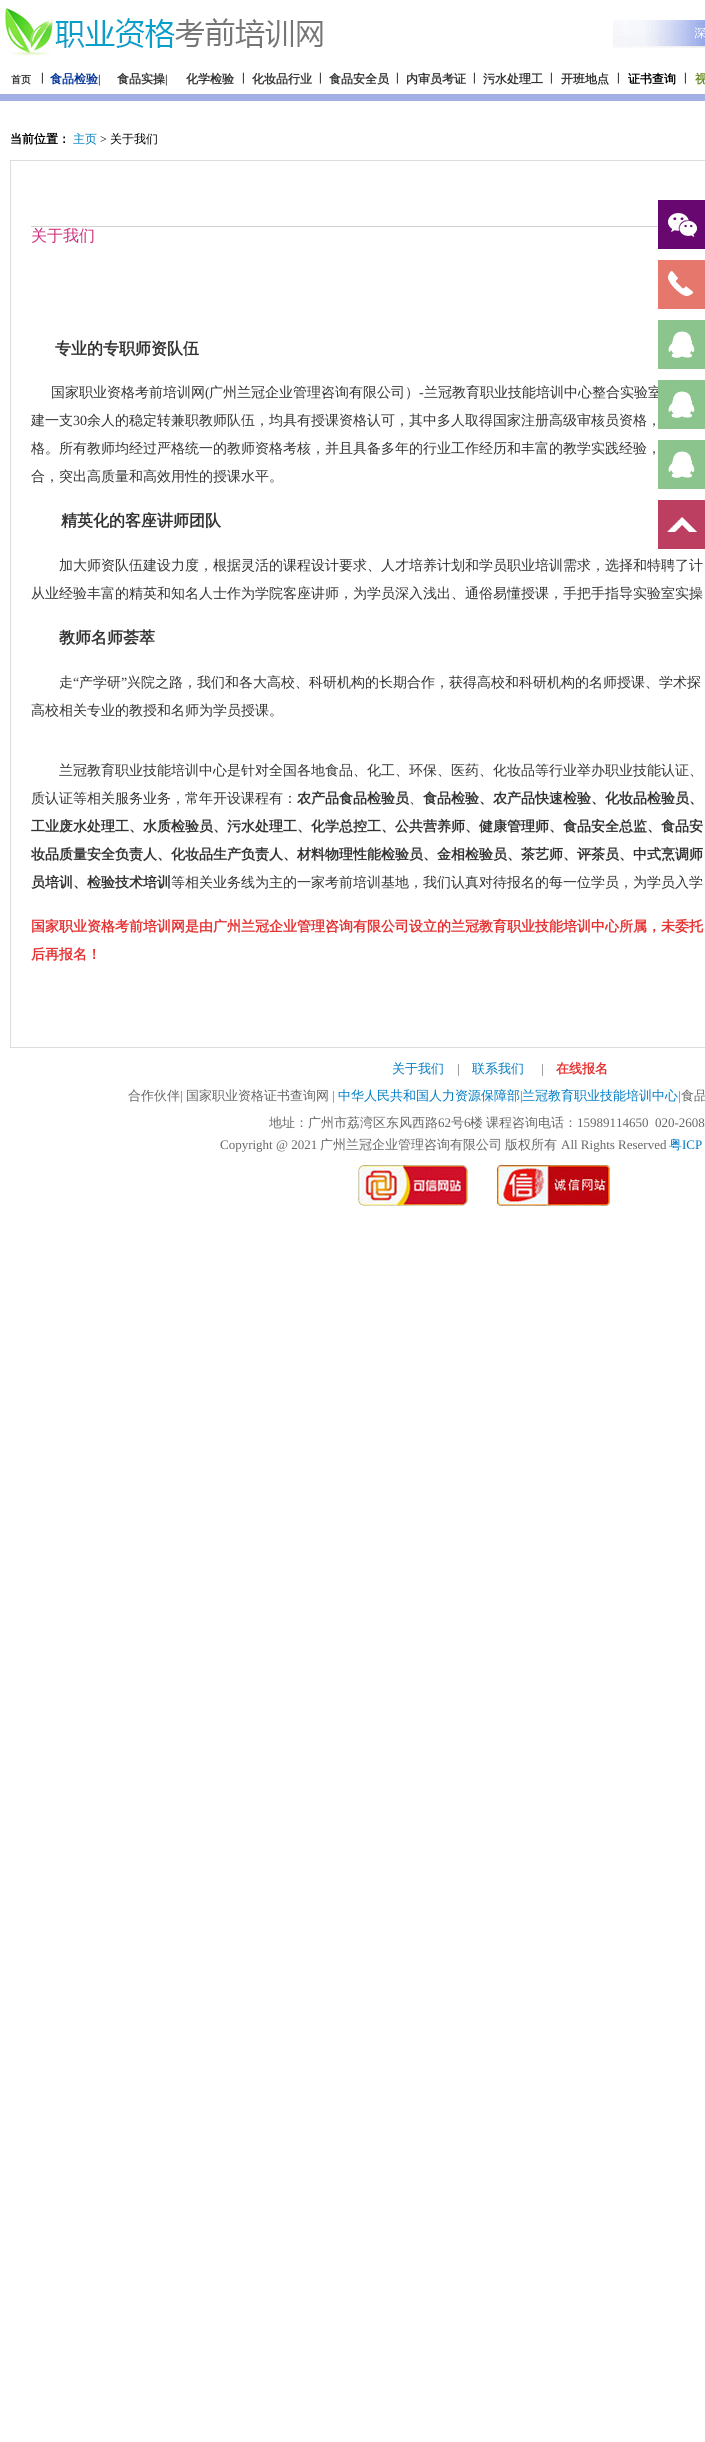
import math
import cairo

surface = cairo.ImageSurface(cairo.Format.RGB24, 705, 2442)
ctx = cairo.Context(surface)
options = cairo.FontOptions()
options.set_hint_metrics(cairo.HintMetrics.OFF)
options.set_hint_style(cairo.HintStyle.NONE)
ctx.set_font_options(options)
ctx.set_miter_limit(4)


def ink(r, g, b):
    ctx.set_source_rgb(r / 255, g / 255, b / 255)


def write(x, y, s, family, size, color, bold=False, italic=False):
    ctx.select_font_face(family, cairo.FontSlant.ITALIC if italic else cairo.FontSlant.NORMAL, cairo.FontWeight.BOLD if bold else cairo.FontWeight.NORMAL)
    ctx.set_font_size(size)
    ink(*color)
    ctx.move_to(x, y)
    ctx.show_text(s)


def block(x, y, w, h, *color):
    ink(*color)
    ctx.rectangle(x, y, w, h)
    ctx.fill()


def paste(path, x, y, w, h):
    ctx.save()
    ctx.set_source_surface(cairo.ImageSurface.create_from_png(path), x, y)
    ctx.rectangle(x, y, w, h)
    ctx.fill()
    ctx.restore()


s1 = dict(family="WenQuanYi Zen Hei Medium", size=12, color=(255, 255, 255))
s2 = dict(family="WenQuanYi Zen Hei", size=10, color=(51, 51, 51), bold=True)
s3 = dict(family="Liberation Serif", size=12, color=(0, 0, 0), bold=True)
s4 = dict(family="WenQuanYi Zen Hei", size=12, color=(0, 51, 153), bold=True)
s5 = dict(family="Liberation Serif", size=12, color=(51, 51, 51), bold=True)
s6 = dict(family="WenQuanYi Zen Hei", size=12, color=(51, 51, 51), bold=True)
s7 = dict(family="WenQuanYi Zen Hei", size=12, color=(0, 0, 0), bold=True)
s8 = dict(family="WenQuanYi Zen Hei", size=12, color=(105, 139, 34), bold=True)
s9 = dict(family="WenQuanYi Zen Hei Medium", size=12, color=(0, 123, 196))
s10 = dict(family="Liberation Serif", size=12, color=(0, 0, 0))
s11 = dict(family="WenQuanYi Zen Hei Medium", size=12, color=(0, 0, 0))
s12 = dict(family="WenQuanYi Zen Hei Medium", size=16, color=(207, 47, 124))
s13 = dict(family="WenQuanYi Zen Hei", size=16, color=(51, 51, 51), bold=True)
s14 = dict(family="WenQuanYi Zen Hei Medium", size=14, color=(51, 51, 51))
s15 = dict(family="Liberation Serif", size=14, color=(51, 51, 51))
s16 = dict(family="WenQuanYi Zen Hei", size=14, color=(51, 51, 51), bold=True)
s17 = dict(family="WenQuanYi Zen Hei", size=14, color=(229, 51, 51), bold=True)
s18 = dict(family="WenQuanYi Zen Hei Medium", size=13, color=(0, 123, 196))
s19 = dict(family="Liberation Serif", size=13, color=(102, 102, 102))
s20 = dict(family="WenQuanYi Zen Hei", size=13, color=(229, 51, 51), bold=True)
s21 = dict(family="WenQuanYi Zen Hei Medium", size=13, color=(102, 102, 102))
s22 = dict(family="Liberation Serif", size=13, color=(0, 123, 196))

ink(255, 255, 255)
ctx.paint()
paste("pic1.png", 0, 94, 705, 7)
paste("pic2.png", 5, 8, 318, 48)
paste("pic3.png", 613, 20, 92, 28)
ctx.save()
ctx.rectangle(695, 22, 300, 28)
ctx.clip()
write(694, 37, "深", **s1)
ctx.restore()
write(11, 83, "首页", **s2)
write(41, 81, "|", **s3)
write(50, 83, "食品检验", **s4)
write(98, 83, "|", **s5)
write(117, 83, "食品实操", **s6)
write(165, 83, "|", **s5)
write(186, 83, "化学检验", **s6)
write(242, 81, "|", **s3)
write(252, 83, "化妆品行业", **s6)
write(319, 81, "|", **s3)
write(329, 83, "食品安全员", **s6)
write(396, 81, "|", **s3)
write(406, 83, "内审员考证", **s6)
write(473, 81, "|", **s3)
write(483, 83, "污水处理工", **s6)
write(550, 81, "|", **s3)
write(561, 83, "开班地点", **s6)
write(617, 81, "|", **s3)
write(628, 83, "证书查询", **s7)
write(684, 81, "|", **s3)
write(695, 83, "视", **s8)
write(10, 143, "当前位置：", **s7)
write(73, 143, "主页", **s9)
write(100, 143, ">", **s10)
write(110, 143, "关于我们", **s11)
ctx.rectangle(10.5, 160.5, 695, 887)
ink(221, 221, 221)
ctx.set_line_width(1)
ctx.stroke()
block(31, 226, 627, 1, 211, 211, 211)
write(31, 241, "关于我们", **s12)
write(55, 354, "专业的专职师资队伍", **s13)
write(51, 397, "国家职业资格考前培训网", **s14)
write(205, 397, "(", **s15)
write(209, 397, "广州兰冠企业管理咨询有限公司）", **s14)
write(419, 397, "-", **s15)
write(424, 397, "兰冠教育职业技能培训中心整合实验室", **s14)
write(31, 425, "建一支", **s14)
write(73, 425, "30", **s15)
write(87, 425, "余人的稳定转兼职教师队伍，均具有授课资格认可，其中多人取得国家注册高级审核员资格，", **s14)
write(31, 453, "格。所有教师均经过严格统一的教师资格考核，并且具备多年的行业工作经历和丰富的教学实践经验，", **s14)
write(31, 481, "合，突出高质量和高效用性的授课水平。", **s14)
write(61, 526, "精英化的客座讲师团队", **s13)
write(59, 570, "加大师资队伍建设力度，根据灵活的课程设计要求、人才培养计划和学员职业培训需求，选择和特聘了计", **s14)
write(31, 598, "从业经验丰富的精英和知名人士作为学院客座讲师，为学员深入浅出、通俗易懂授课，手把手指导实验室实操", **s14)
write(59, 643, "教师名师荟萃", **s13)
write(59, 687, "走", **s14)
write(73, 687, "“", **s15)
write(79, 687, "产学研", **s14)
write(121, 687, "”", **s15)
write(127, 687, "兴院之路，我们和各大高校、科研机构的长期合作，获得高校和科研机构的名师授课、学术探", **s14)
write(31, 715, "高校相关专业的教授和名师为学员授课。", **s14)
write(59, 775, "兰冠教育职业技能培训中心是针对全国各地食品、化工、环保、医药、化妆品等行业举办职业技能认证、", **s14)
write(31, 803, "质认证等相关服务业务，常年开设课程有：", **s14)
write(297, 803, "农产品食品检验员", **s16)
write(409, 803, "、", **s14)
write(423, 803, "食品检验、农产品快速检验、化妆品检验员、", **s16)
write(31, 831, "工业废水处理工、水质检验员、污水处理工、化学总控工、公共营养师、健康管理师、食品安全总监、食品安", **s16)
write(31, 859, "妆品质量安全负责人、化妆品生产负责人、材料物理性能检验员、金相检验员、茶艺师、评茶员、中式烹调师", **s16)
write(31, 887, "员培训、检验技术培训", **s16)
write(171, 887, "等相关业务线为主的一家考前培训基地，我们认真对待报名的每一位学员，为学员入学", **s14)
write(31, 931, "国家职业资格考前培训网是由广州兰冠企业管理咨询有限公司设立的兰冠教育职业技能培训中心所属，未委托", **s17)
write(31, 959, "后再报名！", **s17)
write(392, 1073, "关于我们", **s18)
write(457, 1073, "|", **s19)
write(472, 1073, "联系我们", **s18)
write(541, 1073, "|", **s19)
write(556, 1073, "在线报名", **s20)
write(128, 1100, "合作伙伴", **s21)
write(180, 1100, "|", **s19)
write(186, 1100, "国家职业资格证书查询网", **s21)
write(332, 1100, "|", **s19)
write(338, 1100, "中华人民共和国人力资源保障部", **s18)
write(520, 1100, "|", **s19)
write(522, 1100, "兰冠教育职业技能培训中心", **s18)
write(678, 1100, "|", **s19)
write(681, 1100, "食品", **s21)
write(269, 1127, "地址：广州市荔湾区东风西路", **s21)
write(438, 1127, "62", **s19)
write(451, 1127, "号", **s21)
write(464, 1127, "6", **s19)
write(470, 1127, "楼", **s21)
write(486, 1127, "课程咨询电话：", **s21)
write(577, 1127, "15989114650  020-2608", **s19)
write(220, 1149, "Copyright @ 2021", **s19)
write(320, 1149, "广州兰冠企业管理咨询有限公司", **s21)
write(505, 1149, "版权所有", **s21)
write(561, 1149, "All Rights Reserved", **s19)
write(669, 1149, "粤", **s18)
write(682, 1149, "ICP", **s22)
paste("pic4.png", 358, 1164, 252, 45)
paste("pic5.png", 658, 200, 47, 49)
paste("pic6.png", 658, 260, 47, 49)
paste("pic7.png", 658, 320, 47, 49)
paste("pic7.png", 658, 380, 47, 49)
paste("pic7.png", 658, 440, 47, 49)
paste("pic8.png", 658, 500, 47, 49)
surface.write_to_png("screenshot.png")
